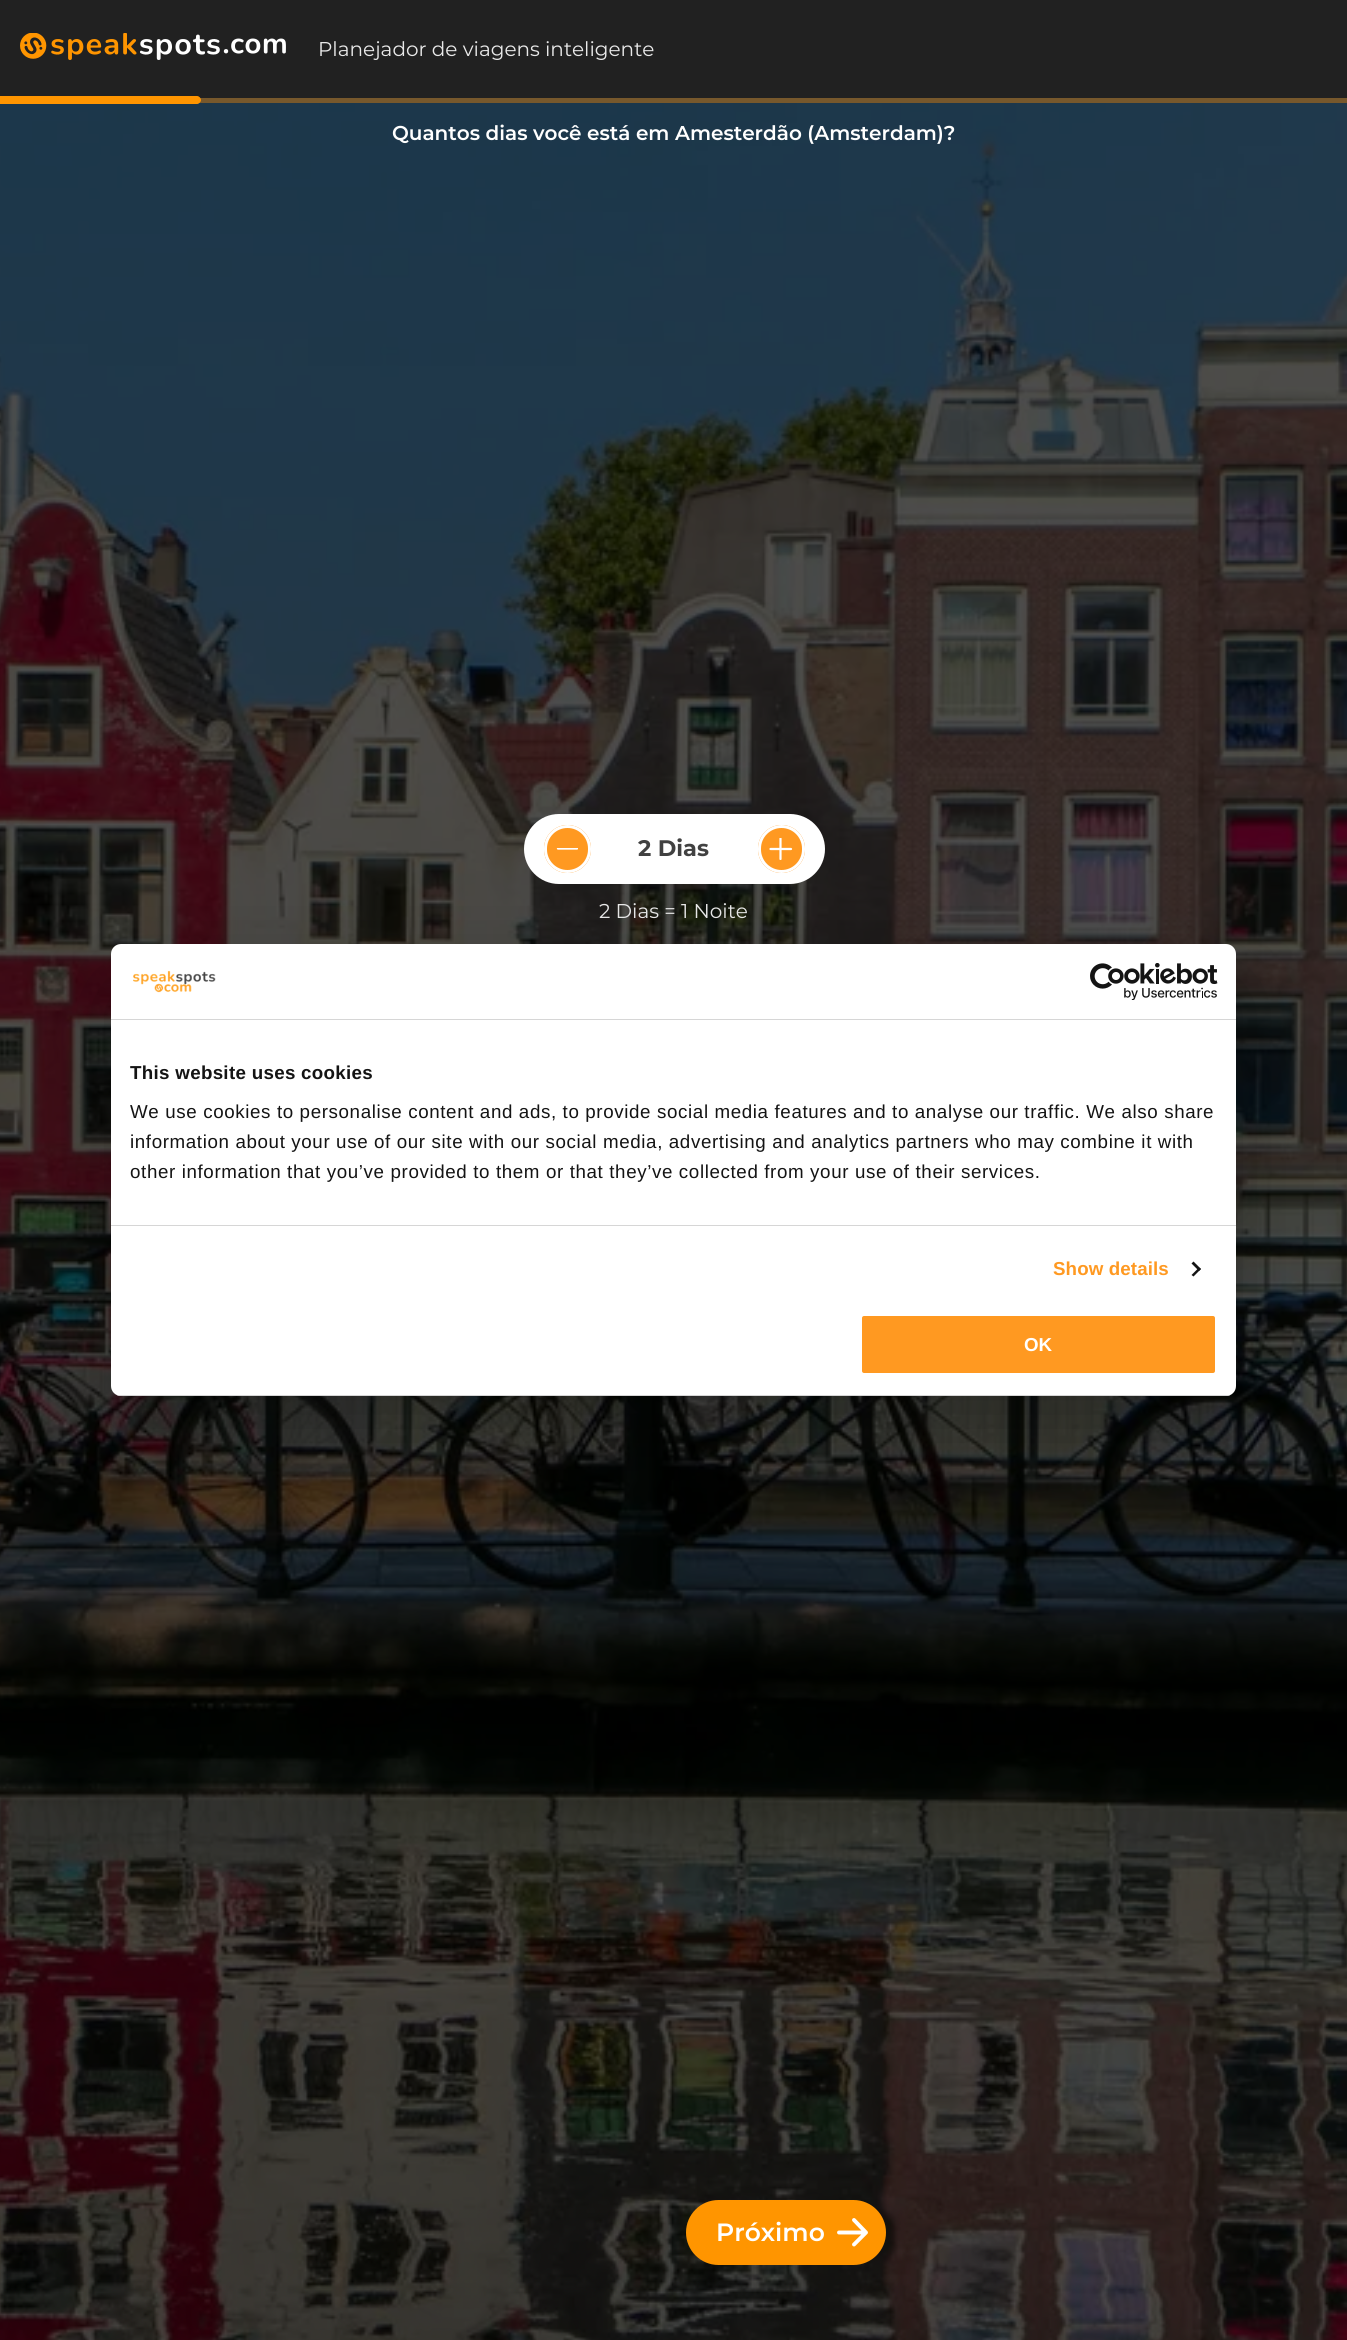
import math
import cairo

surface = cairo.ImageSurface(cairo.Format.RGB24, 1347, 2340)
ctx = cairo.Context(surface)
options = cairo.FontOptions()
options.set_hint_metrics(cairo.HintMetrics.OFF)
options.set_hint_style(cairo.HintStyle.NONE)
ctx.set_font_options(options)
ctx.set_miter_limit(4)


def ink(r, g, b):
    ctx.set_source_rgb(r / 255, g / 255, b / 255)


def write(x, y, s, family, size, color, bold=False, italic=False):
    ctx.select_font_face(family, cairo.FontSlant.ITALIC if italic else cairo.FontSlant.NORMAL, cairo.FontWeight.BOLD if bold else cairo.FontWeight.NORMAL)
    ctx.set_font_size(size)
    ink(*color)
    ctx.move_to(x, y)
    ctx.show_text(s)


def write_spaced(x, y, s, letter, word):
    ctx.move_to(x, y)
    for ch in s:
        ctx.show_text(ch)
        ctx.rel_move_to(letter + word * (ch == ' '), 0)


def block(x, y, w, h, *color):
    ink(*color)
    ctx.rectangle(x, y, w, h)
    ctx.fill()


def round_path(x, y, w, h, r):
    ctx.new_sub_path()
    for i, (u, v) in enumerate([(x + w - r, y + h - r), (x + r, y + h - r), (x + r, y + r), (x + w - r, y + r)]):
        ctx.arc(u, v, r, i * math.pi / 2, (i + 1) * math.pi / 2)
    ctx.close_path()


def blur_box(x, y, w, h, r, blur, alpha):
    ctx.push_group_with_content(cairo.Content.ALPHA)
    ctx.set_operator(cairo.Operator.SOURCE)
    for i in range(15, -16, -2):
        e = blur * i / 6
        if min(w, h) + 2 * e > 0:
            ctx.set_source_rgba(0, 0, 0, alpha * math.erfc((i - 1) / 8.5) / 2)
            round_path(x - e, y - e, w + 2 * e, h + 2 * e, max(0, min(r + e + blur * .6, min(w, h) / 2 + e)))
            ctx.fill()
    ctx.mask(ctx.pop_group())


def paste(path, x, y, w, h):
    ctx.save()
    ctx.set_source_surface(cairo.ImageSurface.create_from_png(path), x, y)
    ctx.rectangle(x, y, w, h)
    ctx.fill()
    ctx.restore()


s1 = dict(family="Montserrat", size=20, color=(233, 233, 233))
s2 = dict(family="Montserrat SemiBold", size=20, color=(255, 255, 255))
s3 = dict(family="Montserrat", size=22.5, color=(65, 65, 65), bold=True)
s4 = dict(family="Montserrat SemiBold", size=25, color=(255, 255, 255))
s5 = dict(family="Liberation Sans", size=18.75, color=(255, 255, 255), bold=True)

ink(33, 33, 33)
ctx.paint()
paste("pic1.png", 20, 33, 266, 27)
write(318, 56, "Planejador de viagens inteligente", **s1)
block(199, 98, 1148, 5, 119, 88, 44)
paste("pic2.png", 0, 103, 1347, 2237)
ink(255, 149, 0)
ctx.new_path()
ctx.move_to(0, 96)
ctx.line_to(197, 96)
ctx.curve_to(199, 96, 201, 98, 201, 100)
ctx.curve_to(201, 102, 199, 104, 197, 104)
ctx.line_to(0, 104)
ctx.close_path()
ctx.fill()
write(392, 140, "Quantos dias você está em Amesterdão (Amsterdam)?", **s2)
round_path(524, 814, 301, 70, 35)
ctx.fill()
ink(255, 153, 33)
round_path(544, 825, 47, 48, 23.5)
ctx.fill()
ctx.save()
ctx.rectangle(556, 848, 22, 3)
ctx.clip()
ctx.new_path()
ctx.move_to(577, 848.5)
ctx.line_to(558, 848.5)
ink(255, 255, 255)
ctx.set_line_width(2.3)
ctx.set_line_cap(cairo.LineCap.ROUND)
ctx.set_line_join(cairo.LineJoin.ROUND)
ctx.stroke()
ctx.restore()
round_path(545.5, 826.5, 44, 45, 22)
ink(255, 255, 255)
ctx.set_line_width(3)
ctx.stroke()
write(638, 856, "2 Dias", **s3)
ink(255, 153, 33)
round_path(758, 825, 47, 48, 23.5)
ctx.fill()
ctx.save()
ctx.rectangle(769, 838, 22, 22)
ctx.clip()
ctx.new_path()
ctx.move_to(780.5, 838.5)
ctx.line_to(780.5, 859)
ink(255, 255, 255)
ctx.set_line_width(2.2)
ctx.set_line_cap(cairo.LineCap.ROUND)
ctx.set_line_join(cairo.LineJoin.ROUND)
ctx.stroke()
ctx.restore()
ctx.new_path()
ctx.move_to(791, 849)
ctx.line_to(770.5, 849)
ink(255, 255, 255)
ctx.set_line_width(2.2)
ctx.set_line_cap(cairo.LineCap.ROUND)
ctx.set_line_join(cairo.LineJoin.ROUND)
ctx.stroke()
round_path(759.5, 826.5, 44, 45, 22)
ctx.set_line_width(3)
ctx.set_line_cap(cairo.LineCap.BUTT)
ctx.set_line_join(cairo.LineJoin.MITER)
ctx.stroke()
write(599, 918, "2 Dias = 1 Noite", **s1)
ink(255, 149, 0)
round_path(686, 2200, 200, 65, 32.5)
ctx.fill()
write(716, 2241, "Próximo", **s4)
ctx.new_path()
ctx.move_to(864.5, 2232.5)
ctx.line_to(839, 2232.5)
ctx.move_to(854, 2220)
ctx.line_to(866, 2232.5)
ctx.line_to(854, 2244.5)
ctx.set_line_width(3.9)
ctx.set_line_cap(cairo.LineCap.ROUND)
ctx.set_line_join(cairo.LineJoin.ROUND)
ctx.stroke()
ink(0, 0, 0)
blur_box(111, 984, 1125, 452, 10, 42.5, 0.3)
ink(255, 255, 255)
round_path(111, 944, 1125, 452, 10)
ctx.fill()
block(111, 1019, 1125, 1, 214, 214, 214)
paste("pic3.png", 133, 970, 83, 23)
paste("pic4.png", 1090, 963, 128, 37)
block(111, 1225, 1125, 1, 214, 214, 214)
ctx.select_font_face("Liberation Sans", cairo.FontSlant.NORMAL, cairo.FontWeight.BOLD)
ctx.set_font_size(18.75)
ink(20, 20, 20)
write_spaced(130, 1079, "This website uses cookies", 0.3, 0)
ctx.select_font_face("Liberation Sans")
write_spaced(130, 1118, "We use cookies to personalise content and ads, to provide social media features and to analyse our traffic. We also share", 0.62, 0)
write_spaced(130, 1148, "information about your use of our site with our social media, advertising and analytics partners who may combine it with", 0.62, 0)
write_spaced(130, 1178, "other information that you’ve provided to them or that they’ve collected from your use of their services.", 0.62, 0)
ctx.select_font_face("Liberation Sans", cairo.FontSlant.NORMAL, cairo.FontWeight.BOLD)
ink(255, 153, 33)
write_spaced(1053, 1275, "Show details", 0.1, 0)
ink(20, 20, 20)
ctx.new_path()
ctx.move_to(1193.5, 1261.5)
ctx.line_to(1201, 1269)
ctx.line_to(1199, 1271)
ctx.line_to(1191.5, 1263.5)
ctx.close_path()
ctx.fill()
ctx.new_path()
ctx.move_to(1199, 1267.5)
ctx.line_to(1201, 1269)
ctx.line_to(1193.5, 1276.5)
ctx.line_to(1191.5, 1275)
ctx.close_path()
ctx.fill()
ctx.save()
round_path(111, 944, 1125, 452, 10)
ctx.clip()
block(111, 1395, 1125, 1, 214, 214, 214)
ctx.restore()
ink(255, 153, 33)
round_path(860.5, 1314.5, 356, 60, 3.5)
ctx.fill_preserve()
ink(255, 255, 255)
ctx.set_line_width(3)
ctx.set_line_cap(cairo.LineCap.BUTT)
ctx.set_line_join(cairo.LineJoin.MITER)
ctx.stroke()
write(1024, 1351, "OK", **s5)
surface.write_to_png("screenshot.png")
